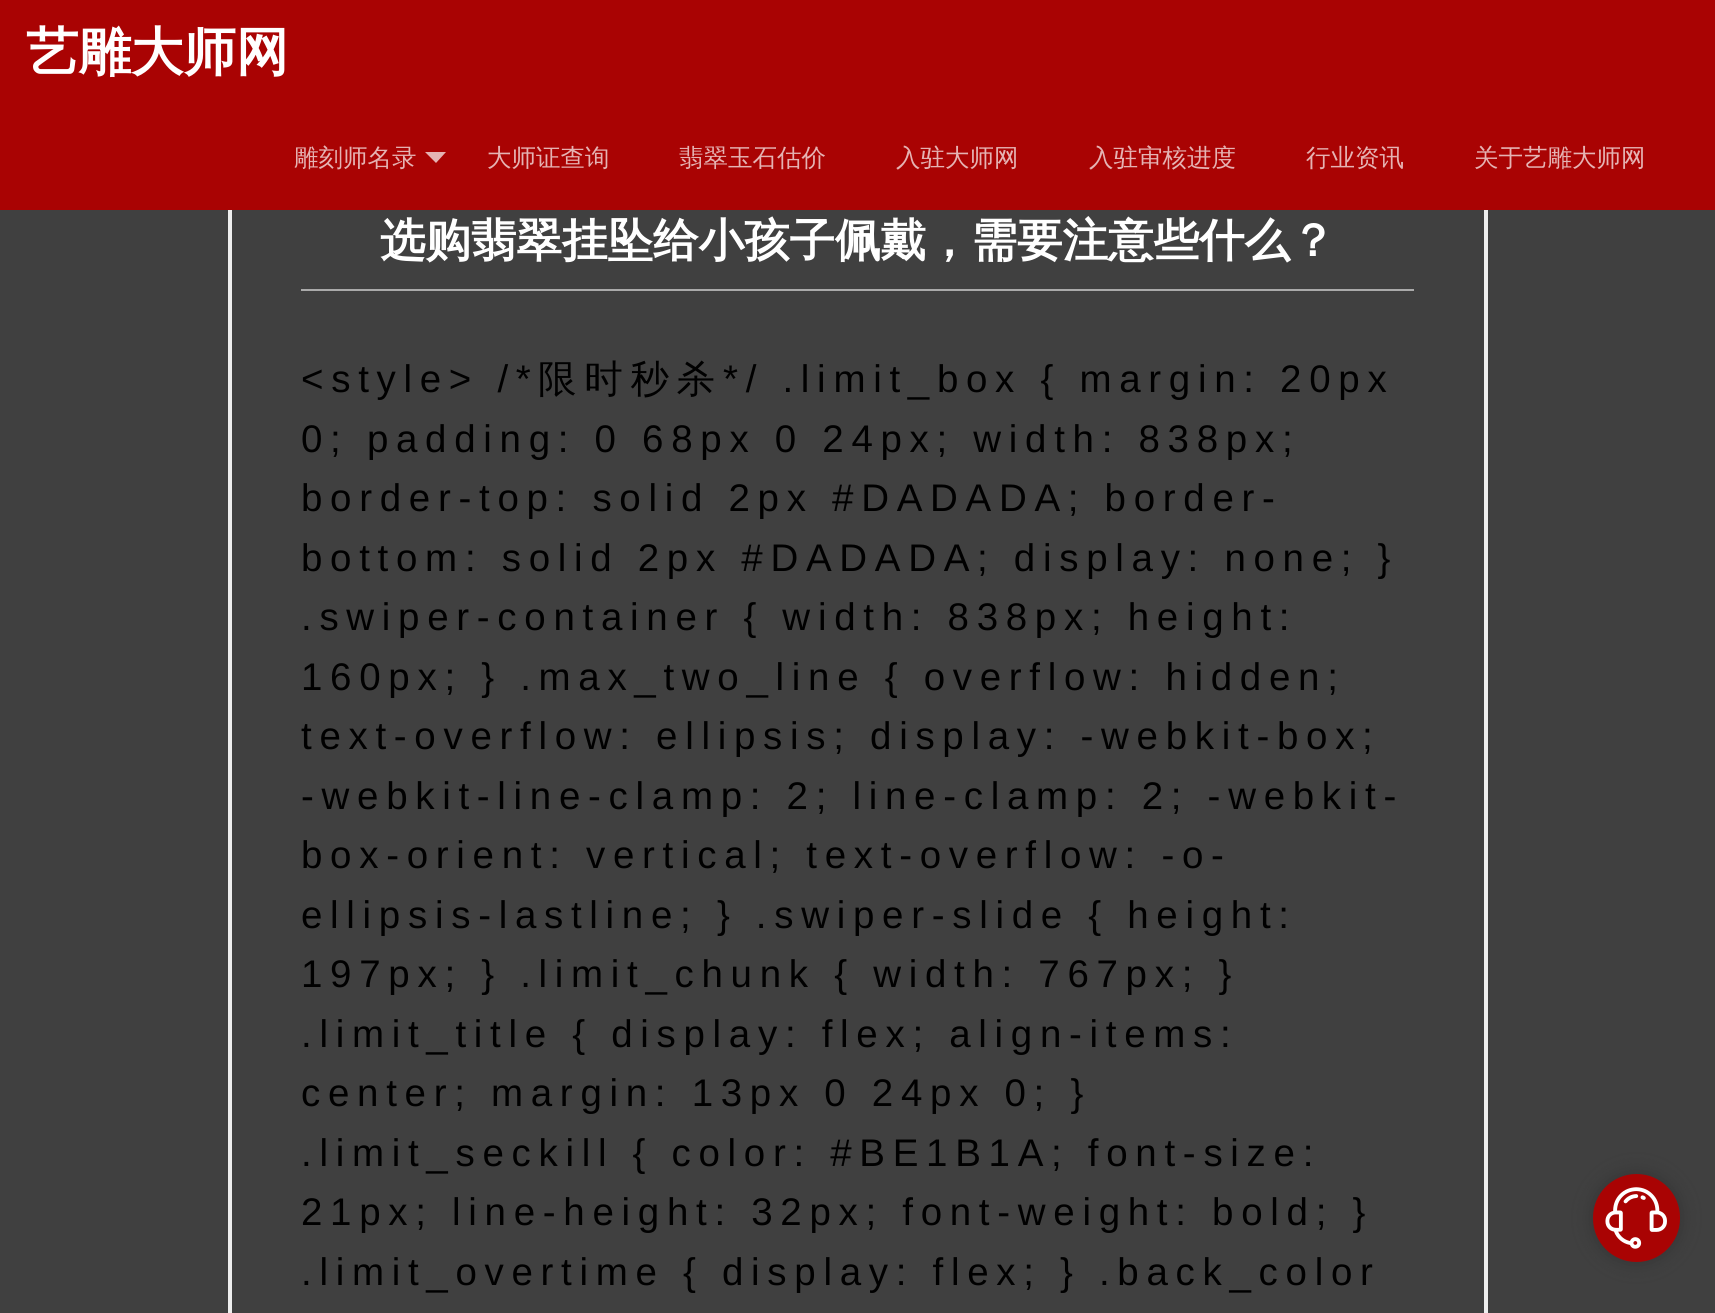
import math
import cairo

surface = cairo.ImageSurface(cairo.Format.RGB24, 1715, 1313)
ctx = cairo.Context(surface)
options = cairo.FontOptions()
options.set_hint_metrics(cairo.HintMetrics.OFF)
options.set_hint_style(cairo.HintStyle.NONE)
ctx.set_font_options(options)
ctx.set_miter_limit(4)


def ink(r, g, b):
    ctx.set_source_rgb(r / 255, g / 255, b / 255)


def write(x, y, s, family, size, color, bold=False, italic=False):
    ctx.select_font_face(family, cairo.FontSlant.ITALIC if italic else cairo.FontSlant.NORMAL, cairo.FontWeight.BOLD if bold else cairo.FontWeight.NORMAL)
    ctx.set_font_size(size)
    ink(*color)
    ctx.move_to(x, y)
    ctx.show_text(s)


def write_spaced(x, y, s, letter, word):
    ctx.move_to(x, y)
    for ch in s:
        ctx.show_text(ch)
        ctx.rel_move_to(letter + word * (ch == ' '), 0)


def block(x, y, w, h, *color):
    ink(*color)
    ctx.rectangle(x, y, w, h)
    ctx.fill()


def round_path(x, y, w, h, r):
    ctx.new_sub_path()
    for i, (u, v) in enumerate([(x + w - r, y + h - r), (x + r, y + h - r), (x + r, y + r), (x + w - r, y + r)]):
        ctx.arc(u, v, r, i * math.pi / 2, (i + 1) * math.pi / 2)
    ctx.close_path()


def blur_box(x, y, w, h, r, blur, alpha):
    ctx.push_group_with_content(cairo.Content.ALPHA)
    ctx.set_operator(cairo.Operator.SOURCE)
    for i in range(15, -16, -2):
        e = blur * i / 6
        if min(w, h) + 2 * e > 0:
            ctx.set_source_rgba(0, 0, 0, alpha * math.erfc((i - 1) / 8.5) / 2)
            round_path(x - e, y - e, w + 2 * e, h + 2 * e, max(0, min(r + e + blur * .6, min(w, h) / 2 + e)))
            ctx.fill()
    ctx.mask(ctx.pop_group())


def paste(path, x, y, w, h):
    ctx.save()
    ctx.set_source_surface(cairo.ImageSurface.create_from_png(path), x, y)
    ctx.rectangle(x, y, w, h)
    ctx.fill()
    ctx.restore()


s1 = dict(family="WenQuanYi Zen Hei", size=52.5, color=(255, 255, 255), bold=True)
s2 = dict(family="WenQuanYi Zen Hei Medium", size=24.5, color=(229, 179, 179))
s3 = dict(family="WenQuanYi Zen Hei", size=45.5, color=(255, 255, 255), bold=True)

ink(64, 64, 64)
ctx.paint()
block(0, 0, 1715, 210, 169, 3, 3)
write(26, 70, "艺雕大师网", **s1)
write(294, 166, "雕刻师名录", **s2)
ctx.new_path()
ctx.move_to(425, 152)
ctx.line_to(446, 152)
ctx.line_to(436, 163)
ctx.close_path()
ctx.fill()
write(487, 166, "大师证查询", **s2)
write(679, 166, "翡翠玉石估价", **s2)
write(896, 166, "入驻大师网", **s2)
write(1089, 166, "入驻审核进度", **s2)
write(1306, 166, "行业资讯", **s2)
write(1474, 166, "关于艺雕大师网", **s2)
block(1484, 210, 4, 1103, 238, 238, 238)
block(228, 210, 4, 1103, 238, 238, 238)
block(301, 289, 1113, 2, 170, 170, 170)
write(380, 256, "选购翡翠挂坠给小孩子佩戴，需要注意些什么？", **s3)
ctx.select_font_face("Liberation Sans")
ctx.set_font_size(38.5)
ink(0, 0, 0)
write_spaced(301, 392, "<style> /*", 7.7, 0)
ctx.select_font_face("WenQuanYi Zen Hei Medium")
write_spaced(538, 392, "限时秒杀", 7.7, 0)
ctx.select_font_face("Liberation Sans")
write_spaced(723, 392, "*/ .limit_box { margin: 20px", 7.7, 0)
write_spaced(301, 452, "0; padding: 0 68px 0 24px; width: 838px;", 7.7, 0)
write_spaced(301, 511, "border-top: solid 2px #DADADA; border-", 7.7, 0)
write_spaced(301, 571, "bottom: solid 2px #DADADA; display: none; }", 7.7, 0)
write_spaced(301, 630, ".swiper-container { width: 838px; height:", 7.7, 0)
write_spaced(301, 690, "160px; } .max_two_line { overflow: hidden;", 7.7, 0)
write_spaced(301, 749, "text-overflow: ellipsis; display: -webkit-box;", 7.7, 0)
write_spaced(301, 809, "-webkit-line-clamp: 2; line-clamp: 2; -webkit-", 7.7, 0)
write_spaced(301, 868, "box-orient: vertical; text-overflow: -o-", 7.7, 0)
write_spaced(301, 928, "ellipsis-lastline; } .swiper-slide { height:", 7.7, 0)
write_spaced(301, 987, "197px; } .limit_chunk { width: 767px; }", 7.7, 0)
write_spaced(301, 1047, ".limit_title { display: flex; align-items:", 7.7, 0)
write_spaced(301, 1106, "center; margin: 13px 0 24px 0; }", 7.7, 0)
write_spaced(301, 1166, ".limit_seckill { color: #BE1B1A; font-size:", 7.7, 0)
write_spaced(301, 1225, "21px; line-height: 32px; font-weight: bold; }", 7.7, 0)
write_spaced(301, 1285, ".limit_overtime { display: flex; } .back_color", 7.7, 0)
ink(51, 51, 51)
blur_box(1593, 1174, 87, 88, 43.5, 9, 1)
ink(169, 3, 3)
round_path(1593, 1174, 87, 88, 43.5)
ctx.fill()
paste("pic1.png", 1605, 1187, 62, 62)
surface.write_to_png("screenshot.png")
